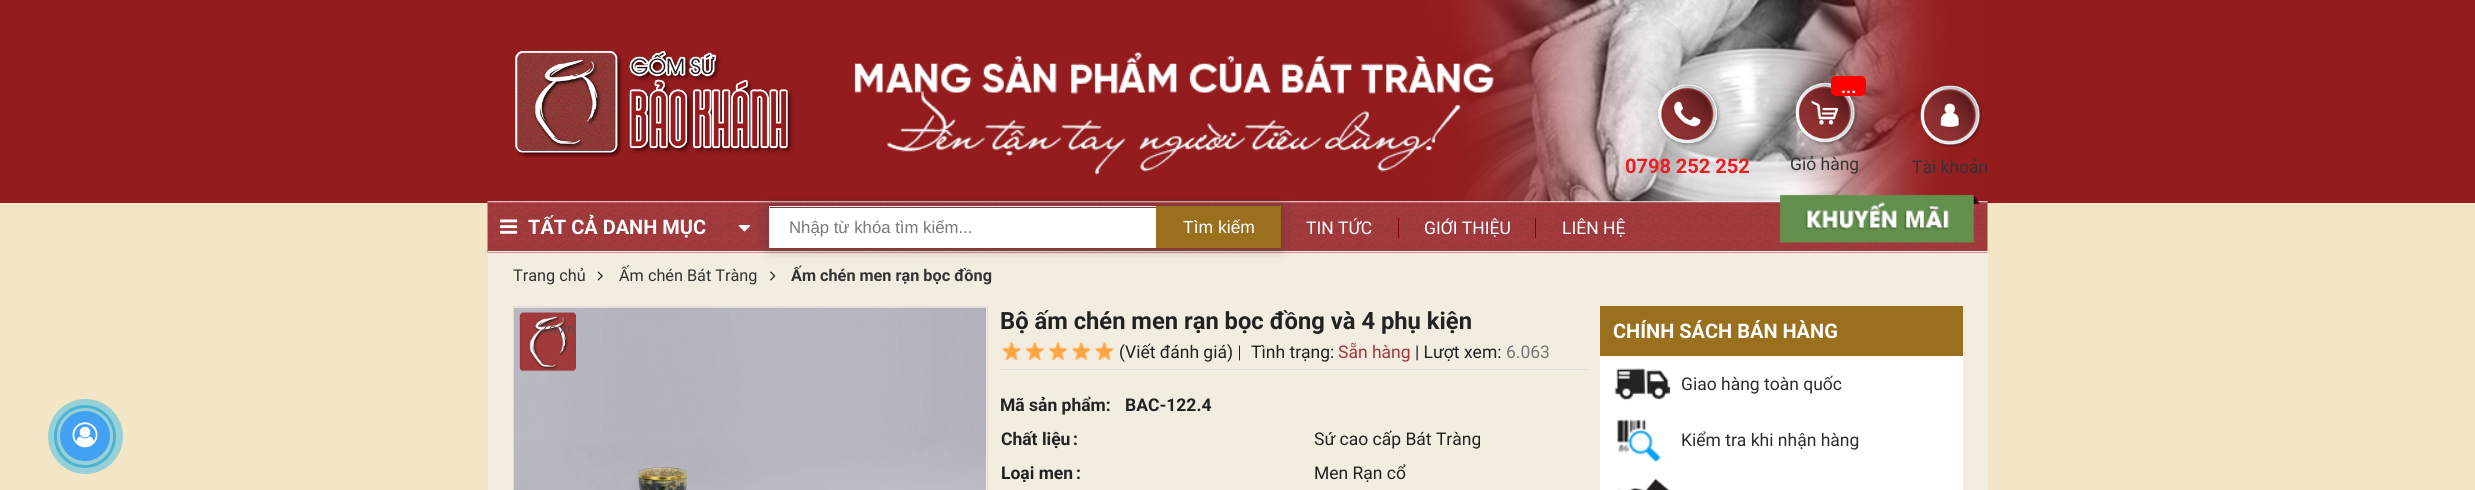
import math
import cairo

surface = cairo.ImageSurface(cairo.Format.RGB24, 2475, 490)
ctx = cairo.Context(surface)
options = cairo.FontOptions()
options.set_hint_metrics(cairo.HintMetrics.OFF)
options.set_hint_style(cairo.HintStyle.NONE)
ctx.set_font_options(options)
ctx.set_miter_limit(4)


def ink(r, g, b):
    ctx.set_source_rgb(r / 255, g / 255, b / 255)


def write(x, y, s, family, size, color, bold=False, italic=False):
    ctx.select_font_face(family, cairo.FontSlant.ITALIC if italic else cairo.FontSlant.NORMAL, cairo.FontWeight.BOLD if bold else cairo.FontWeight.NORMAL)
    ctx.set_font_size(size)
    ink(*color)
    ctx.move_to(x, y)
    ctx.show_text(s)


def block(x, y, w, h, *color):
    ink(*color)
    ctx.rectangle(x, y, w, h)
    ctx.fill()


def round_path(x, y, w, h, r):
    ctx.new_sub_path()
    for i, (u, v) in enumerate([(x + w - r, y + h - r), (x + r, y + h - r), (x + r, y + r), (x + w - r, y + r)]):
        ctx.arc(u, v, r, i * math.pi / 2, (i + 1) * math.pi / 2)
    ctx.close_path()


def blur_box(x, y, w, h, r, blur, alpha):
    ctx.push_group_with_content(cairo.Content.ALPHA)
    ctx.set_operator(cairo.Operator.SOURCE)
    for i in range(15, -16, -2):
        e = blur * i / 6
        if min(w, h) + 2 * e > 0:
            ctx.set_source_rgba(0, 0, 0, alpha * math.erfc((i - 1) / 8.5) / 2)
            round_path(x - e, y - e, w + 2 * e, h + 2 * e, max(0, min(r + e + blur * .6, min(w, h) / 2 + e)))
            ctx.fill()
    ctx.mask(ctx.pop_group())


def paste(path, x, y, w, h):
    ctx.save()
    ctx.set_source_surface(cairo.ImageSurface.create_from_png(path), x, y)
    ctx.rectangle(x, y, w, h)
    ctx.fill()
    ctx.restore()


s1 = dict(family="Roboto", size=20, color=(237, 28, 36), bold=True)
s2 = dict(family="Roboto", size=17.5, color=(255, 255, 255), bold=True)
s3 = dict(family="Roboto", size=17.5, color=(51, 51, 51))
s4 = dict(family="Roboto", size=20, color=(255, 255, 255), bold=True)
s5 = dict(family="Liberation Sans", size=16.75, color=(119, 119, 119))
s6 = dict(family="Liberation Sans", size=17.5, color=(255, 255, 255))
s7 = dict(family="Roboto", size=17.5, color=(255, 255, 255))
s8 = dict(family="Roboto", size=16.25, color=(51, 51, 51))
s9 = dict(family="Roboto", size=16.25, color=(51, 51, 51), bold=True)
s10 = dict(family="Liberation Sans", size=13, color=(90, 71, 72))
s11 = dict(family="Roboto", size=23.75, color=(34, 34, 34), bold=True)
s12 = dict(family="Roboto", size=17.5, color=(34, 34, 34))
s13 = dict(family="Roboto", size=17.5, color=(161, 56, 60))
s14 = dict(family="Roboto", size=17.5, color=(119, 119, 119))
s15 = dict(family="Roboto", size=17.5, color=(34, 34, 34), bold=True)
s16 = dict(family="Roboto", size=17.5, color=(45, 45, 45))

ink(243, 230, 198)
ctx.paint()
block(0, 0, 2475, 203, 148, 28, 30)
paste("pic1.png", 487, 0, 1501, 203)
paste("pic2.png", 515, 50, 278, 108)
paste("pic3.png", 1657, 83, 64, 64)
write(1625, 173, "0798 252 252", **s1)
paste("pic4.png", 1795, 82, 63, 64)
ink(255, 0, 0)
round_path(1831, 76, 35, 20, 5)
ctx.fill()
write(1841, 93, "...", **s2)
write(1790, 170, "Giỏ hàng", **s3)
paste("pic5.png", 1920, 85, 63, 63)
write(1912, 173, "Tài khoản", **s3)
round_path(55.5, 406.5, 59, 60, 29.5)
ink(122, 184, 192)
ctx.set_line_width(3)
ctx.stroke()
ctx.set_source_rgba(0, 0.686, 0.949, 0.38)
ctx.arc(85.5, 436.5, 37.5, 0, 2 * math.pi)
ctx.fill()
ink(67, 161, 243)
ctx.arc(85, 436, 25, 0, 2 * math.pi)
ctx.fill()
paste("pic6.png", 72, 422, 26, 26)
block(488, 203, 1500, 287, 243, 237, 225)
paste("pic7.png", 487, 202, 1501, 51)
block(488, 251, 1500, 1, 238, 238, 238)
paste("pic8.png", 500, 219, 18, 15)
write(528, 234, "TẤT CẢ DANH MỤC", **s4)
paste("pic9.png", 738, 225, 13, 7)
ink(51, 51, 51)
blur_box(769, 206, 512, 42, 0, 6, 0.52)
ctx.rectangle(769.5, 206.5, 511, 41)
ink(238, 238, 238)
ctx.set_line_width(1)
ctx.stroke()
block(770, 208, 386, 40, 255, 255, 255)
write(789, 233, "Nhập từ khóa tìm kiếm...", **s5)
block(1156, 206, 125, 42, 154, 112, 31)
write(1183, 233, "Tìm kiếm", **s6)
write(1306, 234, "TIN TỨC", **s7)
block(1398, 218, 1, 20, 127, 2, 2)
write(1424, 234, "GIỚI THIỆU", **s7)
block(1535, 218, 1, 20, 127, 2, 2)
write(1562, 234, "LIÊN HỆ", **s7)
paste("pic10.png", 1779, 194, 202, 49)
write(513, 281, "Trang chủ", **s8)
paste("pic11.png", 597, 271, 6, 10)
write(619, 281, "Ấm chén Bát Tràng", **s8)
paste("pic12.png", 770, 271, 6, 10)
write(791, 281, "Ấm chén men rạn bọc đồng", **s9)
ctx.rectangle(513.5, 306.5, 474, 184)
ink(221, 221, 221)
ctx.stroke()
paste("pic13.png", 514, 307, 473, 183)
write(541, 333, "Zoom", **s10)
write(1000, 329, "Bộ ấm chén men rạn bọc đồng và 4 phụ kiện", **s11)
paste("pic14.png", 1002, 341, 112, 20)
write(1119, 358, "(Viết đánh giá) |", **s12)
write(1251, 358, "Tình trạng:", **s12)
write(1338, 358, "Sẵn hàng", **s13)
write(1415, 358, "| Lượt xem:", **s12)
write(1506, 358, "6.063", **s14)
block(1000, 369, 588, 1, 221, 221, 221)
write(1000, 411, "Mã sản phẩm:", **s15)
write(1125, 411, "BAC-122.4", **s15)
write(1001, 445, "Chất liệu", **s15)
write(1073, 445, ":", **s15)
write(1314, 445, "Sứ cao cấp Bát Tràng", **s12)
write(1001, 479, "Loại men", **s15)
write(1076, 479, ":", **s15)
write(1314, 479, "Men Rạn cổ", **s12)
block(1600, 356, 363, 134, 255, 255, 255)
block(1600, 306, 363, 50, 154, 112, 31)
write(1613, 338, "CHÍNH SÁCH BÁN HÀNG", **s4)
paste("pic15.png", 1614, 368, 57, 33)
write(1681, 390, "Giao hàng toàn quốc", **s16)
paste("pic16.png", 1617, 419, 45, 43)
write(1681, 446, "Kiểm tra khi nhận hàng", **s16)
paste("pic17.png", 1617, 478, 53, 12)
surface.write_to_png("screenshot.png")
